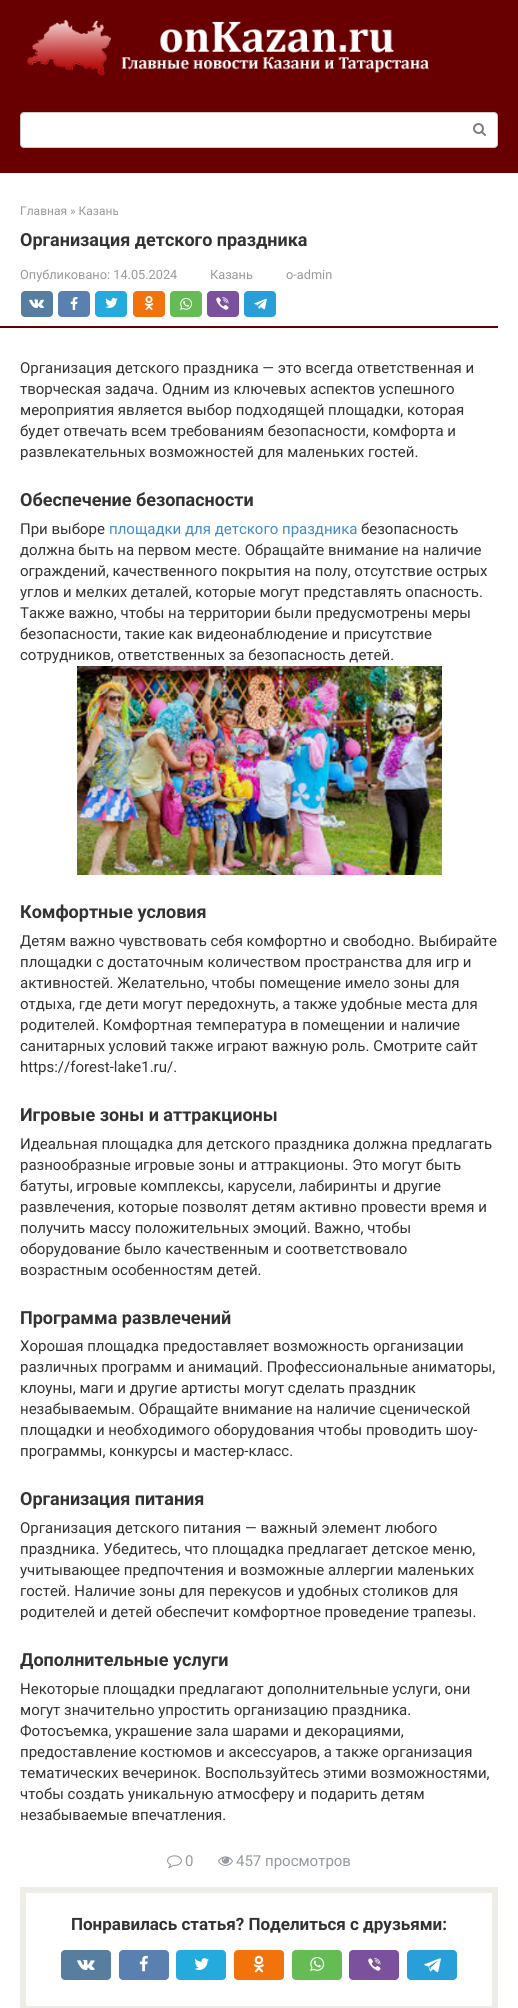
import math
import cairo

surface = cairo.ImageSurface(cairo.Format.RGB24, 518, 2008)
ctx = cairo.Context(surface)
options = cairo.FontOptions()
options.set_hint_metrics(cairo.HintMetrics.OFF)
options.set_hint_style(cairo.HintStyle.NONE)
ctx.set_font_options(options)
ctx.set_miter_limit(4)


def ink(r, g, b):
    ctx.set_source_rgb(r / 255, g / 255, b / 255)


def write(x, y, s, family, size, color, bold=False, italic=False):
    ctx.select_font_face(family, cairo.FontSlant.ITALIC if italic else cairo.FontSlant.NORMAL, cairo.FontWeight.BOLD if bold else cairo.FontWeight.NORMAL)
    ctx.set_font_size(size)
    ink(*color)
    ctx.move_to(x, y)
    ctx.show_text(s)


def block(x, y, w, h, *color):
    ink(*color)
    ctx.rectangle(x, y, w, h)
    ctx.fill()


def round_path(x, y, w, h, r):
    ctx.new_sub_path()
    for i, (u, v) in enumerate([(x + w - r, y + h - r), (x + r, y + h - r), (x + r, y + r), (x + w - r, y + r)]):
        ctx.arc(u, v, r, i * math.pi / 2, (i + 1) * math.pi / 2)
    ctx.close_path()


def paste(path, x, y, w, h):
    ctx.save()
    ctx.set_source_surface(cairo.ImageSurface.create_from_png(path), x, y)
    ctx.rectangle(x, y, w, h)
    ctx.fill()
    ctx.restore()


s1 = dict(family="Roboto", size=12, color=(153, 153, 153))
s2 = dict(family="Roboto", size=18, color=(51, 51, 51), bold=True)
s3 = dict(family="Roboto", size=12.75, color=(153, 153, 153))
s4 = dict(family="Roboto", size=15, color=(51, 51, 51))
s5 = dict(family="Roboto", size=15, color=(66, 139, 202))
s6 = dict(family="Roboto", size=15, color=(149, 154, 160))
s7 = dict(family="Roboto", size=17, color=(51, 51, 51), bold=True)

ink(104, 0, 1)
ctx.paint()
paste("pic1.png", 27, 20, 402, 56)
ink(255, 255, 255)
round_path(20.5, 112.5, 477, 35, 3.5)
ctx.fill_preserve()
ink(204, 204, 204)
ctx.set_line_width(1)
ctx.stroke()
paste("pic2.png", 473, 123, 13, 13)
block(0, 173, 518, 1835, 255, 255, 255)
write(20, 215, "Главная » Казань", **s1)
write(20, 246, "Организация детского праздника", **s2)
write(20, 279, "Опубликовано: 14.05.2024", **s3)
write(210, 279, "Казань", **s3)
write(286, 279, "o-admin", **s3)
ink(88, 126, 159)
round_path(21, 291, 32, 26, 4)
ctx.fill()
paste("pic3.png", 29, 299, 15, 9)
ink(90, 128, 177)
round_path(58, 291, 32, 26, 4)
ctx.fill()
paste("pic4.png", 70, 297, 8, 13)
ink(36, 170, 221)
round_path(95, 291, 32, 26, 4)
ctx.fill()
paste("pic5.png", 105, 298, 13, 10)
ink(242, 114, 12)
round_path(133, 291, 32, 26, 4)
ctx.fill()
paste("pic6.png", 144, 296, 10, 14)
ink(101, 188, 84)
round_path(170, 291, 32, 26, 4)
ctx.fill()
paste("pic7.png", 180, 297, 12, 13)
ink(123, 81, 157)
round_path(207, 291, 32, 26, 4)
ctx.fill()
paste("pic8.png", 216, 297, 13, 13)
ink(40, 159, 217)
round_path(244, 291, 32, 26, 4)
ctx.fill()
paste("pic9.png", 254, 298, 13, 12)
block(0, 326, 498, 2, 104, 0, 1)
write(20, 373, "Организация детского праздника — это всегда ответственная и", **s4)
write(20, 394, "творческая задача. Одним из ключевых аспектов успешного", **s4)
write(20, 415, "мероприятия является выбор подходящей площадки, которая", **s4)
write(20, 436, "будет отвечать всем требованиям безопасности, комфорта и", **s4)
write(20, 457, "развлекательных возможностей для маленьких гостей.", **s4)
write(20, 506, "Обеспечение безопасности", **s2)
write(20, 534, "При выборе", **s4)
write(109, 534, "площадки для детского праздника", **s5)
write(361, 534, "безопасность", **s4)
write(20, 555, "должна быть на первом месте. Обращайте внимание на наличие", **s4)
write(20, 576, "ограждений, качественного покрытия на полу, отсутствие острых", **s4)
write(20, 597, "углов и мелких деталей, которые могут представлять опасность.", **s4)
write(20, 618, "Также важно, чтобы на территории были предусмотрены меры", **s4)
write(20, 639, "безопасности, такие как видеонаблюдение и присутствие", **s4)
write(20, 660, "сотрудников, ответственных за безопасность детей.", **s4)
paste("pic10.png", 77, 666, 365, 209)
write(20, 918, "Комфортные условия", **s2)
write(20, 946, "Детям важно чувствовать себя комфортно и свободно. Выбирайте", **s4)
write(20, 967, "площадки с достаточным количеством пространства для игр и", **s4)
write(20, 988, "активностей. Желательно, чтобы помещение имело зоны для", **s4)
write(20, 1009, "отдыха, где дети могут передохнуть, а также удобные места для", **s4)
write(20, 1030, "родителей. Комфортная температура в помещении и наличие", **s4)
write(20, 1051, "санитарных условий также играют важную роль. Смотрите сайт", **s4)
write(20, 1072, "https://forest-lake1.ru/.", **s4)
write(20, 1121, "Игровые зоны и аттракционы", **s2)
write(20, 1149, "Идеальная площадка для детского праздника должна предлагать", **s4)
write(20, 1170, "разнообразные игровые зоны и аттракционы. Это могут быть", **s4)
write(20, 1191, "батуты, игровые комплексы, карусели, лабиринты и другие", **s4)
write(20, 1212, "развлечения, которые позволят детям активно провести время и", **s4)
write(20, 1233, "получить массу положительных эмоций. Важно, чтобы", **s4)
write(20, 1254, "оборудование было качественным и соответствовало", **s4)
write(20, 1275, "возрастным особенностям детей.", **s4)
write(20, 1324, "Программа развлечений", **s2)
write(20, 1351, "Хорошая площадка предоставляет возможность организации", **s4)
write(20, 1372, "различных программ и анимаций. Профессиональные аниматоры,", **s4)
write(20, 1393, "клоуны, маги и другие артисты могут сделать праздник", **s4)
write(20, 1414, "незабываемым. Обращайте внимание на наличие сценической", **s4)
write(20, 1435, "площадки и необходимого оборудования чтобы проводить шоу-", **s4)
write(20, 1456, "программы, конкурсы и мастер-класс.", **s4)
write(20, 1505, "Организация питания", **s2)
write(20, 1533, "Организация детского питания — важный элемент любого", **s4)
write(20, 1554, "праздника. Убедитесь, что площадка предлагает детское меню,", **s4)
write(20, 1575, "учитывающее предпочтения и возможные аллергии маленьких", **s4)
write(20, 1596, "гостей. Наличие зоны для перекусов и удобных столиков для", **s4)
write(20, 1617, "родителей и детей обеспечит комфортное проведение трапезы.", **s4)
write(20, 1666, "Дополнительные услуги", **s2)
write(20, 1694, "Некоторые площадки предлагают дополнительные услуги, они", **s4)
write(20, 1715, "могут значительно упростить организацию праздника.", **s4)
write(20, 1736, "Фотосъемка, украшение зала шарами и декорациями,", **s4)
write(20, 1757, "предоставление костюмов и аксессуаров, а также организация", **s4)
write(20, 1778, "тематических вечеринок. Воспользуйтесь этими возможностями,", **s4)
write(20, 1799, "чтобы создать уникальную атмосферу и подарить детям", **s4)
write(20, 1820, "незабываемые впечатления.", **s4)
paste("pic11.png", 167, 1855, 15, 14)
write(185, 1866, "0", **s6)
paste("pic12.png", 218, 1856, 15, 10)
write(236, 1866, "457 просмотров", **s6)
ctx.rectangle(23, 1890, 472, 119)
ink(239, 237, 231)
ctx.set_line_width(6)
ctx.stroke()
write(71, 1930, "Понравилась статья? Поделиться с друзьями:", **s7)
ink(88, 126, 159)
round_path(61, 1950, 50, 30, 4)
ctx.fill()
paste("pic13.png", 77, 1959, 18, 11)
ink(90, 128, 177)
round_path(119, 1950, 50, 30, 4)
ctx.fill()
paste("pic14.png", 139, 1955, 9, 17)
ink(36, 170, 221)
round_path(176, 1950, 50, 30, 4)
ctx.fill()
paste("pic15.png", 194, 1958, 15, 12)
ink(242, 114, 12)
round_path(234, 1950, 50, 30, 4)
ctx.fill()
paste("pic16.png", 254, 1955, 10, 18)
ink(101, 188, 84)
round_path(292, 1950, 50, 30, 4)
ctx.fill()
paste("pic17.png", 310, 1957, 15, 15)
ink(123, 81, 157)
round_path(349, 1950, 50, 30, 4)
ctx.fill()
paste("pic8.png", 368, 1958, 13, 13)
ink(40, 159, 217)
round_path(407, 1950, 50, 30, 4)
ctx.fill()
paste("pic18.png", 424, 1958, 17, 15)
surface.write_to_png("screenshot.png")
